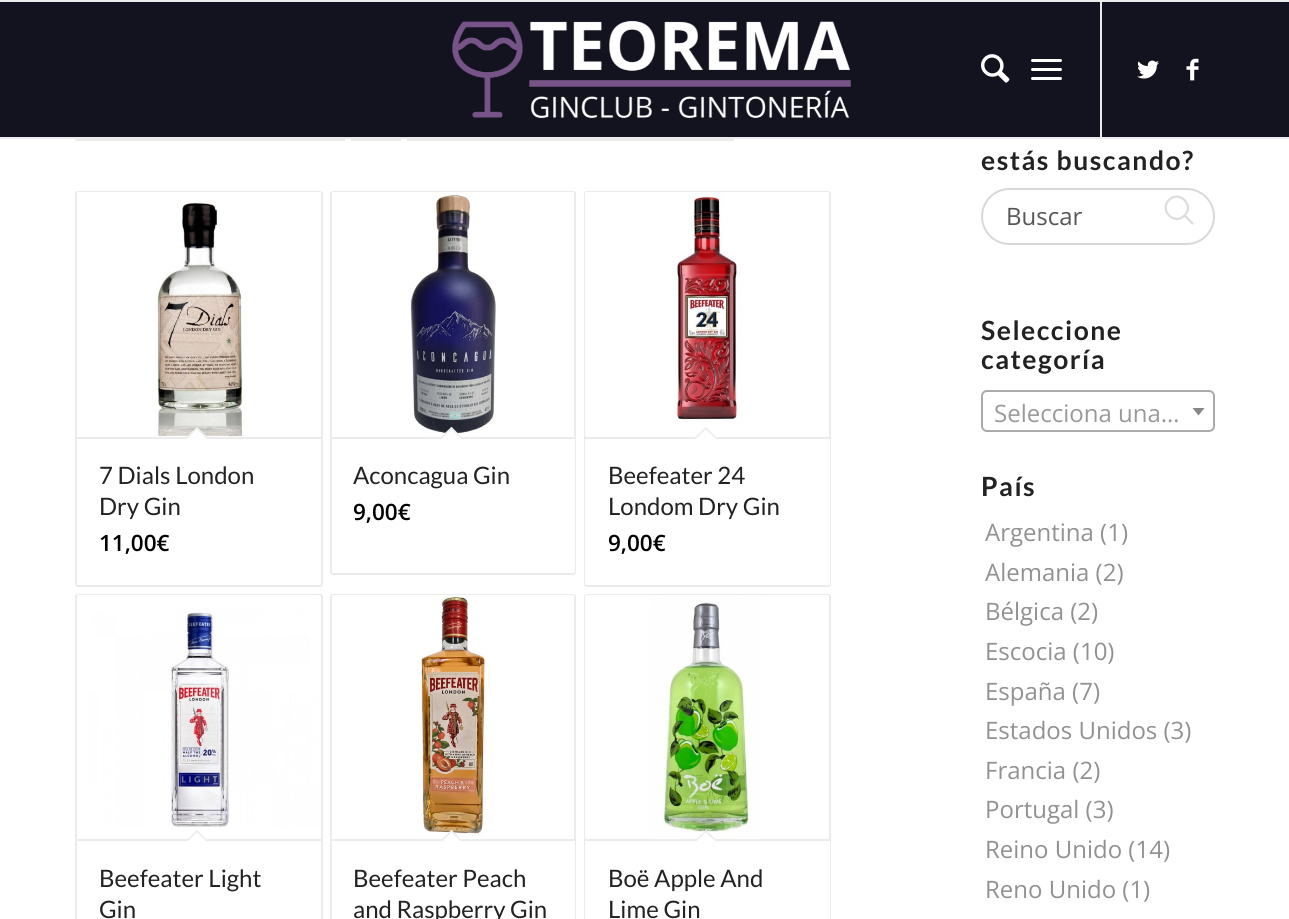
import math
import cairo

surface = cairo.ImageSurface(cairo.Format.RGB24, 1289, 919)
ctx = cairo.Context(surface)
options = cairo.FontOptions()
options.set_hint_metrics(cairo.HintMetrics.OFF)
options.set_hint_style(cairo.HintStyle.NONE)
ctx.set_font_options(options)
ctx.set_miter_limit(4)


def ink(r, g, b):
    ctx.set_source_rgb(r / 255, g / 255, b / 255)


def write(x, y, s, family, size, color, bold=False, italic=False):
    ctx.select_font_face(family, cairo.FontSlant.ITALIC if italic else cairo.FontSlant.NORMAL, cairo.FontWeight.BOLD if bold else cairo.FontWeight.NORMAL)
    ctx.set_font_size(size)
    ink(*color)
    ctx.move_to(x, y)
    ctx.show_text(s)


def write_spaced(x, y, s, letter, word):
    ctx.move_to(x, y)
    for ch in s:
        ctx.show_text(ch)
        ctx.rel_move_to(letter + word * (ch == ' '), 0)


def block(x, y, w, h, *color):
    ink(*color)
    ctx.rectangle(x, y, w, h)
    ctx.fill()


def round_path(x, y, w, h, r):
    ctx.new_sub_path()
    for i, (u, v) in enumerate([(x + w - r, y + h - r), (x + r, y + h - r), (x + r, y + r), (x + w - r, y + r)]):
        ctx.arc(u, v, r, i * math.pi / 2, (i + 1) * math.pi / 2)
    ctx.close_path()


def paste(path, x, y, w, h):
    ctx.save()
    ctx.set_source_surface(cairo.ImageSurface.create_from_png(path), x, y)
    ctx.rectangle(x, y, w, h)
    ctx.fill()
    ctx.restore()


s1 = dict(family="Lato", size=24, color=(34, 34, 34))
s2 = dict(family="Open Sans SemiBold", size=22.5, color=(0, 0, 0))
s3 = dict(family="Open Sans", size=24, color=(87, 87, 87))
s4 = dict(family="Open Sans", size=24, color=(153, 153, 153))
s5 = dict(family="Open Sans", size=24, color=(145, 145, 145))

ink(255, 255, 255)
ctx.paint()
block(0, 0, 1289, 2, 235, 235, 235)
ctx.rectangle(76, 93, 268, 47)
ctx.stroke()
ctx.rectangle(352, 93, 48, 47)
ctx.stroke()
ctx.rectangle(408, 93, 325, 47)
ctx.stroke()
block(0, 137, 1289, 2, 235, 235, 235)
block(0, 2, 1289, 135, 18, 19, 31)
paste("pic1.png", 452, 21, 399, 98)
block(1100, 2, 2, 135, 235, 235, 235)
paste("pic2.png", 981, 54, 29, 29)
ink(255, 255, 255)
round_path(1031, 68, 31, 3, 1.5)
ctx.fill()
round_path(1031, 59, 31, 3, 1.5)
ctx.fill()
round_path(1031, 77, 31, 3, 1.5)
ctx.fill()
paste("pic3.png", 1137, 60, 22, 19)
paste("pic4.png", 1186, 58, 13, 23)
round_path(76, 192, 246, 394, 2)
ink(235, 235, 235)
ctx.stroke()
paste("pic5.png", 77, 192, 244, 244)
block(77, 437, 244, 2, 235, 235, 235)
ink(255, 255, 255)
ctx.new_path()
ctx.move_to(197, 427)
ctx.line_to(207.5, 437.5)
ctx.line_to(197, 448.5)
ctx.line_to(186.5, 437.5)
ctx.close_path()
ctx.fill()
ink(235, 235, 235)
ctx.new_path()
ctx.move_to(197, 427)
ctx.line_to(207.5, 437.5)
ctx.line_to(206.5, 438.5)
ctx.line_to(196, 428)
ctx.close_path()
ctx.fill()
ctx.new_path()
ctx.move_to(197, 427)
ctx.line_to(198, 428)
ctx.line_to(187.5, 438.5)
ctx.line_to(186.5, 437.5)
ctx.close_path()
ctx.fill()
write(99, 484, "7 Dials London", **s1)
write(99, 515, "Dry Gin", **s1)
write(99, 551, "11,00€", **s2)
round_path(331, 192, 244, 382, 2)
ink(235, 235, 235)
ctx.stroke()
paste("pic6.png", 332, 192, 242, 242)
ink(255, 255, 255)
ctx.new_path()
ctx.move_to(332, 437)
ctx.line_to(575, 437)
ctx.line_to(575, 571.5)
ctx.curve_to(575, 572.5, 574.5, 573, 573.5, 573)
ctx.line_to(333.5, 573)
ctx.curve_to(332.5, 573, 332, 572.5, 332, 571.5)
ctx.close_path()
ctx.fill()
block(332, 437, 243, 2, 235, 235, 235)
ink(255, 255, 255)
ctx.new_path()
ctx.move_to(451.5, 427)
ctx.line_to(462, 437.5)
ctx.line_to(451.5, 448.5)
ctx.line_to(440.5, 437.5)
ctx.close_path()
ctx.fill()
ink(235, 235, 235)
ctx.new_path()
ctx.move_to(451.5, 427)
ctx.line_to(462, 437.5)
ctx.line_to(461, 438.5)
ctx.line_to(450.5, 428)
ctx.close_path()
ctx.fill()
ctx.new_path()
ctx.move_to(451.5, 427)
ctx.line_to(452.5, 428)
ctx.line_to(442, 438.5)
ctx.line_to(440.5, 437.5)
ctx.close_path()
ctx.fill()
write(353, 484, "Aconcagua Gin", **s1)
write(353, 520, "9,00€", **s2)
round_path(585, 192, 245, 394, 2)
ink(235, 235, 235)
ctx.stroke()
paste("pic7.png", 585, 192, 244, 244)
ink(255, 255, 255)
ctx.new_path()
ctx.move_to(585, 437)
ctx.line_to(830, 437)
ctx.line_to(830, 583.5)
ctx.curve_to(830, 584.5, 829.5, 585, 828.5, 585)
ctx.line_to(586.5, 585)
ctx.curve_to(585.5, 585, 585, 584.5, 585, 583.5)
ctx.close_path()
ctx.fill()
block(585, 437, 245, 2, 235, 235, 235)
ink(255, 255, 255)
ctx.new_path()
ctx.move_to(706, 427)
ctx.line_to(716.5, 437.5)
ctx.line_to(706, 448.5)
ctx.line_to(695, 437.5)
ctx.close_path()
ctx.fill()
ink(235, 235, 235)
ctx.new_path()
ctx.move_to(706, 427)
ctx.line_to(716.5, 437.5)
ctx.line_to(715.5, 438.5)
ctx.line_to(704.5, 428)
ctx.close_path()
ctx.fill()
ctx.new_path()
ctx.move_to(706, 427)
ctx.line_to(707, 428)
ctx.line_to(696, 438.5)
ctx.line_to(695, 437.5)
ctx.close_path()
ctx.fill()
write(608, 484, "Beefeater 24", **s1)
write(608, 515, "Londom Dry Gin", **s1)
write(608, 551, "9,00€", **s2)
round_path(76, 595, 246, 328, 2)
ink(235, 235, 235)
ctx.stroke()
paste("pic8.png", 77, 595, 243, 233)
block(77, 839, 244, 2, 235, 235, 235)
ink(255, 255, 255)
ctx.new_path()
ctx.move_to(197, 830)
ctx.line_to(207.5, 840.5)
ctx.line_to(197, 851)
ctx.line_to(186.5, 840.5)
ctx.close_path()
ctx.fill()
ink(235, 235, 235)
ctx.new_path()
ctx.move_to(197, 830)
ctx.line_to(207.5, 840.5)
ctx.line_to(206.5, 841.5)
ctx.line_to(196, 831)
ctx.close_path()
ctx.fill()
ctx.new_path()
ctx.move_to(197, 830)
ctx.line_to(198, 831)
ctx.line_to(187.5, 841.5)
ctx.line_to(186.5, 840.5)
ctx.close_path()
ctx.fill()
write(99, 887, "Beefeater Light", **s1)
write(99, 918, "Gin", **s1)
round_path(331, 595, 244, 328, 2)
ink(235, 235, 235)
ctx.stroke()
paste("pic9.png", 332, 595, 242, 241)
block(574, 841, 1, 78, 255, 255, 255)
block(332, 839, 243, 2, 235, 235, 235)
ink(255, 255, 255)
ctx.new_path()
ctx.move_to(451.5, 830)
ctx.line_to(462, 840.5)
ctx.line_to(451.5, 851)
ctx.line_to(440.5, 840.5)
ctx.close_path()
ctx.fill()
ink(235, 235, 235)
ctx.new_path()
ctx.move_to(451.5, 830)
ctx.line_to(462, 840.5)
ctx.line_to(461, 841.5)
ctx.line_to(450.5, 831)
ctx.close_path()
ctx.fill()
ctx.new_path()
ctx.move_to(451.5, 830)
ctx.line_to(452.5, 831)
ctx.line_to(442, 841.5)
ctx.line_to(440.5, 840.5)
ctx.close_path()
ctx.fill()
write(353, 887, "Beefeater Peach", **s1)
write(353, 918, "and Raspberry Gin", **s1)
round_path(585, 595, 245, 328, 2)
ink(235, 235, 235)
ctx.stroke()
paste("pic10.png", 585, 595, 244, 243)
block(585, 841, 245, 78, 255, 255, 255)
block(585, 839, 245, 2, 235, 235, 235)
ink(255, 255, 255)
ctx.new_path()
ctx.move_to(706, 830)
ctx.line_to(716.5, 840.5)
ctx.line_to(705.5, 851)
ctx.line_to(695, 840.5)
ctx.close_path()
ctx.fill()
ink(235, 235, 235)
ctx.new_path()
ctx.move_to(706, 830)
ctx.line_to(716.5, 840.5)
ctx.line_to(715.5, 841.5)
ctx.line_to(704.5, 831)
ctx.close_path()
ctx.fill()
ctx.new_path()
ctx.move_to(706, 830)
ctx.line_to(707, 831)
ctx.line_to(696, 841.5)
ctx.line_to(695, 840.5)
ctx.close_path()
ctx.fill()
write(608, 887, "Boë Apple And", **s1)
write(608, 918, "Lime Gin", **s1)
ctx.select_font_face("Lato", cairo.FontSlant.NORMAL, cairo.FontWeight.BOLD)
ctx.set_font_size(26.5)
write_spaced(981, 170, "estás buscando?", 1.5, 0)
round_path(982, 189, 232, 55, 27.5)
ink(216, 216, 216)
ctx.stroke()
write(1006, 225, "Buscar", **s3)
ctx.new_path()
ctx.move_to(1192.5, 223.5)
ctx.line_to(1184.5, 215.5)
ctx.move_to(1184.5, 215.5)
ctx.curve_to(1195, 205.5, 1179, 189.5, 1169, 200)
ctx.curve_to(1158.5, 210, 1174.5, 226, 1184.5, 215.5)
ctx.close_path()
ink(220, 220, 220)
ctx.set_line_width(2.2)
ctx.set_line_cap(cairo.LineCap.ROUND)
ctx.set_line_join(cairo.LineJoin.ROUND)
ctx.stroke()
ctx.select_font_face("Lato", cairo.FontSlant.NORMAL, cairo.FontWeight.BOLD)
ctx.set_font_size(26.5)
ink(34, 34, 34)
write_spaced(981, 340, "Seleccione", 1.5, 0)
write_spaced(981, 369, "categoría", 1.5, 0)
round_path(982, 391, 232, 40, 5)
ink(170, 170, 170)
ctx.set_line_width(2)
ctx.set_line_cap(cairo.LineCap.BUTT)
ctx.set_line_join(cairo.LineJoin.MITER)
ctx.stroke()
write(994, 422, "Selecciona una…", **s4)
ink(136, 136, 136)
ctx.new_path()
ctx.move_to(1192.5, 408)
ctx.line_to(1204.5, 408)
ctx.line_to(1198.5, 415.5)
ctx.close_path()
ctx.fill()
ctx.select_font_face("Lato", cairo.FontSlant.NORMAL, cairo.FontWeight.BOLD)
ctx.set_font_size(26.5)
ink(34, 34, 34)
write_spaced(981, 496, "País", 1.5, 0)
write(985, 541, "Argentina (1)", **s5)
write(985, 581, "Alemania (2)", **s5)
write(985, 620, "Bélgica (2)", **s5)
write(985, 660, "Escocia (10)", **s5)
write(985, 700, "España (7)", **s5)
write(985, 739, "Estados Unidos (3)", **s5)
write(985, 779, "Francia (2)", **s5)
write(985, 818, "Portugal (3)", **s5)
write(985, 858, "Reino Unido (14)", **s5)
write(985, 898, "Reno Unido (1)", **s5)
surface.write_to_png("screenshot.png")
